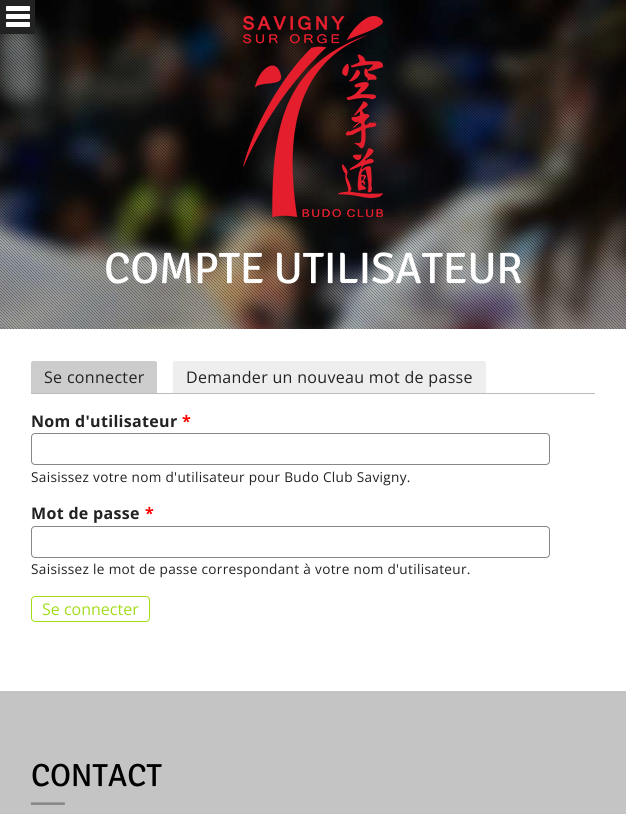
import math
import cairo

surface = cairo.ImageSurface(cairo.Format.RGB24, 626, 814)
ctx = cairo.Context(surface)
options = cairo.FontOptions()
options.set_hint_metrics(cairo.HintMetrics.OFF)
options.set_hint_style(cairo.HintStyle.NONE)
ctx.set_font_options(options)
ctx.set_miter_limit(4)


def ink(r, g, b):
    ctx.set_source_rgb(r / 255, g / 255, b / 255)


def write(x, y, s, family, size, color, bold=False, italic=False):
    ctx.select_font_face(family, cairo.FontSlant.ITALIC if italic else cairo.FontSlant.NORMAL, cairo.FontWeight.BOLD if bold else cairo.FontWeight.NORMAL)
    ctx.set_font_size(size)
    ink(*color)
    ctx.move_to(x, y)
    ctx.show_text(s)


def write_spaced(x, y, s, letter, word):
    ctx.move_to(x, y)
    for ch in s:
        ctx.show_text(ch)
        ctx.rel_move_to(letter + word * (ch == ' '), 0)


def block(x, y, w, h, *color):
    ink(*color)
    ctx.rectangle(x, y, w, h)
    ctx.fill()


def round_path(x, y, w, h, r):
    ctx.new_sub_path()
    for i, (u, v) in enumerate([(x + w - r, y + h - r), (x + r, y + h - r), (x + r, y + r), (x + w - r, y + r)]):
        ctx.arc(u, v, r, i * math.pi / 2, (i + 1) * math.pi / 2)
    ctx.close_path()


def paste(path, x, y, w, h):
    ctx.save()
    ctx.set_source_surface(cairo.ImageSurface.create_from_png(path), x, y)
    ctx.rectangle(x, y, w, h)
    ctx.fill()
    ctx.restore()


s1 = dict(family="Open Sans", size=16, color=(163, 220, 29))

ink(255, 255, 255)
ctx.paint()
paste("pic1.png", 0, 0, 626, 329)
paste("pic2.png", 0, 0, 626, 329)
block(0, 0, 35, 34, 34, 34, 34)
paste("pic3.png", 6, 6, 24, 21)
paste("pic4.png", 243, 16, 140, 201)
ctx.select_font_face("Signika Light")
ctx.set_font_size(44)
ink(255, 255, 255)
write_spaced(104, 283, "COMPTE UTILISATEUR", -0.4, 0)
block(31, 393, 564, 1, 187, 187, 187)
ink(204, 204, 204)
ctx.new_path()
ctx.move_to(33, 361)
ctx.line_to(155, 361)
ctx.curve_to(156, 361, 157, 362, 157, 363)
ctx.line_to(157, 393)
ctx.line_to(31, 393)
ctx.line_to(31, 363)
ctx.curve_to(31, 362, 32, 361, 33, 361)
ctx.close_path()
ctx.fill()
ctx.select_font_face("Open Sans")
ctx.set_font_size(16)
ink(34, 34, 34)
write_spaced(44, 383, "Se connecter", 0.32, 0)
ink(238, 238, 238)
ctx.new_path()
ctx.move_to(175, 361)
ctx.line_to(484, 361)
ctx.curve_to(485, 361, 486, 362, 486, 363)
ctx.line_to(486, 393)
ctx.line_to(173, 393)
ctx.line_to(173, 363)
ctx.curve_to(173, 362, 174, 361, 175, 361)
ctx.close_path()
ctx.fill()
ink(34, 34, 34)
write_spaced(186, 383, "Demander un nouveau mot de passe", 0.32, 0)
ctx.select_font_face("Open Sans", cairo.FontSlant.NORMAL, cairo.FontWeight.BOLD)
write_spaced(31, 427, "Nom d'utilisateur", 0.32, 0)
ink(255, 0, 0)
write_spaced(182, 427, "*", 0.32, 0)
round_path(31.5, 433.5, 518, 31, 3.5)
ink(135, 135, 135)
ctx.set_line_width(1)
ctx.stroke()
ctx.select_font_face("Open Sans")
ctx.set_font_size(13.6)
ink(34, 34, 34)
write_spaced(31, 482, "Saisissez votre nom d'utilisateur pour Budo Club Savigny.", 0.32, 0)
ctx.select_font_face("Open Sans", cairo.FontSlant.NORMAL, cairo.FontWeight.BOLD)
ctx.set_font_size(16)
write_spaced(31, 519, "Mot de passe", 0.32, 0)
ink(255, 0, 0)
write_spaced(145, 519, "*", 0.32, 0)
round_path(31.5, 526.5, 518, 31, 3.5)
ink(135, 135, 135)
ctx.stroke()
ctx.select_font_face("Open Sans")
ctx.set_font_size(13.6)
ink(34, 34, 34)
write_spaced(31, 574, "Saisissez le mot de passe correspondant à votre nom d'utilisateur.", 0.32, 0)
round_path(31.5, 596.5, 118, 25, 3.5)
ink(163, 220, 29)
ctx.stroke()
write(42, 615, "Se connecter", **s1)
block(0, 691, 626, 123, 196, 196, 196)
ctx.select_font_face("Signika Light")
ctx.set_font_size(32)
ink(0, 0, 0)
write_spaced(31, 786, "CONTACT", -0.25, 0)
ink(135, 135, 135)
write_spaced(31, 800, "__", -0.25, 0)
surface.write_to_png("screenshot.png")
